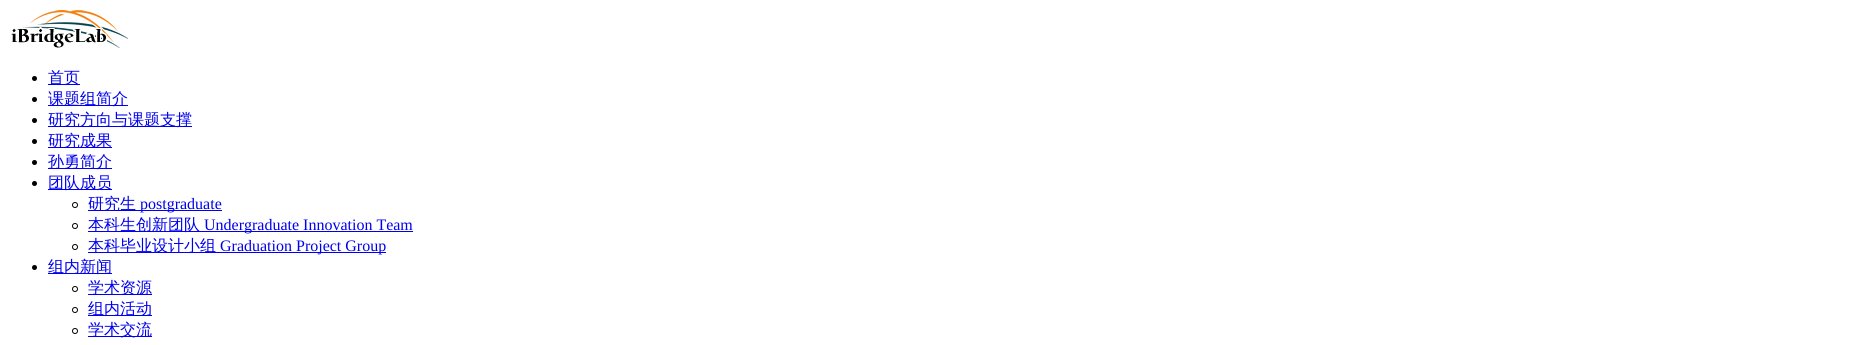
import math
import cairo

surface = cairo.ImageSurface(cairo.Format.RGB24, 1855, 345)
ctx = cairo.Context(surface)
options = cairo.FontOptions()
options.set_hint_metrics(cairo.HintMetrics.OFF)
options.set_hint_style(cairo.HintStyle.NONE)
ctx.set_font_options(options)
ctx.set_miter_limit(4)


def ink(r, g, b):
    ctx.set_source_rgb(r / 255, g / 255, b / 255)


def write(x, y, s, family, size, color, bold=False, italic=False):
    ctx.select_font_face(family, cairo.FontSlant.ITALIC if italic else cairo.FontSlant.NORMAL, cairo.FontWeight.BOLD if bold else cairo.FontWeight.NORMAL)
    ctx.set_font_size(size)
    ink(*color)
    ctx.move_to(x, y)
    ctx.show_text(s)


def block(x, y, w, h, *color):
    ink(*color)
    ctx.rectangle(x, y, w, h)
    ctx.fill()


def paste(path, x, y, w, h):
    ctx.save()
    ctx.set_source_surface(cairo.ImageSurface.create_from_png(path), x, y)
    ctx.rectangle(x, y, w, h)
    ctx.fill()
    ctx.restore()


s1 = dict(family="WenQuanYi Zen Hei Medium", size=16, color=(0, 0, 238))
s2 = dict(family="Liberation Serif", size=16, color=(0, 0, 238))

ink(255, 255, 255)
ctx.paint()
paste("pic1.png", 11, 10, 117, 38)
ink(0, 0, 0)
ctx.arc(34.5, 78.5, 2.5, 0, 2 * math.pi)
ctx.fill()
block(48, 84, 32, 1, 0, 0, 238)
write(48, 83, "首页", **s1)
ink(0, 0, 0)
ctx.new_path()
ctx.arc(34.5, 99.5, 2.5, 0, 2 * math.pi)
ctx.fill()
block(48, 105, 80, 1, 0, 0, 238)
write(48, 104, "课题组简介", **s1)
ink(0, 0, 0)
ctx.new_path()
ctx.arc(34.5, 120.5, 2.5, 0, 2 * math.pi)
ctx.fill()
block(48, 126, 144, 1, 0, 0, 238)
write(48, 125, "研究方向与课题支撑", **s1)
ink(0, 0, 0)
ctx.new_path()
ctx.arc(34.5, 141.5, 2.5, 0, 2 * math.pi)
ctx.fill()
block(48, 147, 64, 1, 0, 0, 238)
write(48, 146, "研究成果", **s1)
ink(0, 0, 0)
ctx.new_path()
ctx.arc(34.5, 162.5, 2.5, 0, 2 * math.pi)
ctx.fill()
block(48, 168, 64, 1, 0, 0, 238)
write(48, 167, "孙勇简介", **s1)
ink(0, 0, 0)
ctx.new_path()
ctx.arc(34.5, 183.5, 2.5, 0, 2 * math.pi)
ctx.fill()
block(48, 189, 64, 1, 0, 0, 238)
write(48, 188, "团队成员", **s1)
ctx.new_path()
ctx.arc(75, 205, 2.5, 0, 2 * math.pi)
ink(0, 0, 0)
ctx.set_line_width(1)
ctx.stroke()
block(88, 210, 134, 1, 0, 0, 238)
write(88, 209, "研究生", **s1)
write(140, 209, "postgraduate", **s2)
ctx.new_path()
ctx.arc(75, 226, 2.5, 0, 2 * math.pi)
ink(0, 0, 0)
ctx.stroke()
block(88, 231, 325, 1, 0, 0, 238)
write(88, 230, "本科生创新团队", **s1)
write(204, 230, "Undergraduate Innovation Team", **s2)
ctx.new_path()
ctx.arc(75, 247, 2.5, 0, 2 * math.pi)
ink(0, 0, 0)
ctx.stroke()
block(88, 252, 298, 1, 0, 0, 238)
write(88, 251, "本科毕业设计小组", **s1)
write(220, 251, "Graduation Project Group", **s2)
ink(0, 0, 0)
ctx.new_path()
ctx.arc(34.5, 267.5, 2.5, 0, 2 * math.pi)
ctx.fill()
block(48, 273, 64, 1, 0, 0, 238)
write(48, 272, "组内新闻", **s1)
ctx.new_path()
ctx.arc(75, 289, 2.5, 0, 2 * math.pi)
ink(0, 0, 0)
ctx.stroke()
block(88, 294, 64, 1, 0, 0, 238)
write(88, 293, "学术资源", **s1)
ctx.new_path()
ctx.arc(75, 310, 2.5, 0, 2 * math.pi)
ink(0, 0, 0)
ctx.stroke()
block(88, 315, 64, 1, 0, 0, 238)
write(88, 314, "组内活动", **s1)
ctx.new_path()
ctx.arc(75, 331, 2.5, 0, 2 * math.pi)
ink(0, 0, 0)
ctx.stroke()
block(88, 336, 64, 1, 0, 0, 238)
write(88, 335, "学术交流", **s1)
surface.write_to_png("screenshot.png")
